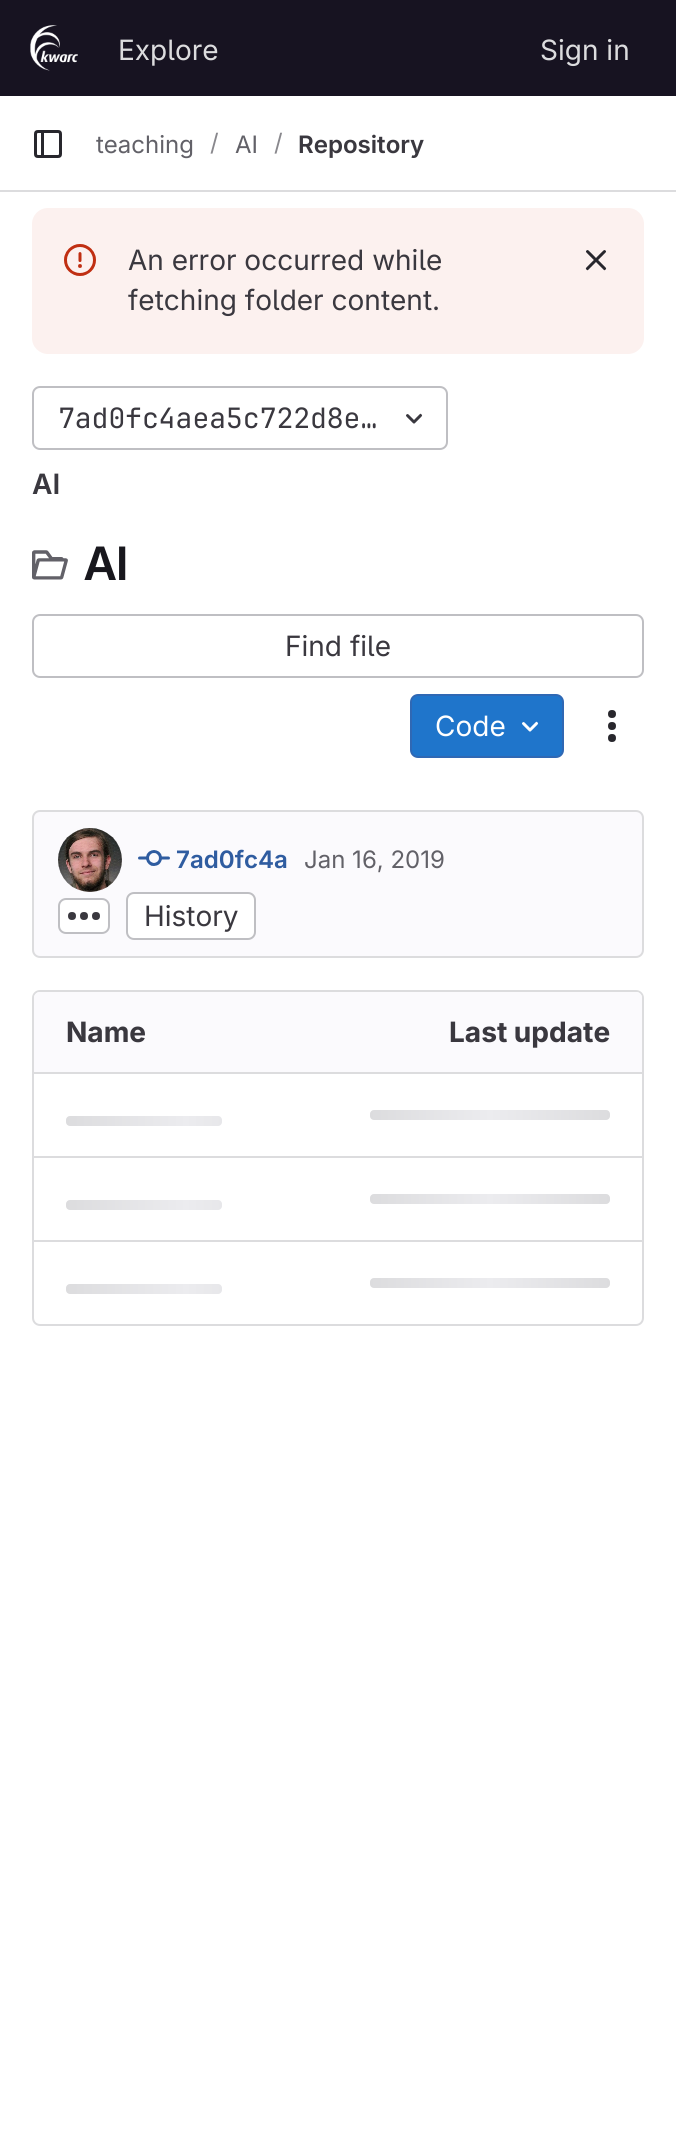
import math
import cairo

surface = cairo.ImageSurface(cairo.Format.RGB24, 676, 2141)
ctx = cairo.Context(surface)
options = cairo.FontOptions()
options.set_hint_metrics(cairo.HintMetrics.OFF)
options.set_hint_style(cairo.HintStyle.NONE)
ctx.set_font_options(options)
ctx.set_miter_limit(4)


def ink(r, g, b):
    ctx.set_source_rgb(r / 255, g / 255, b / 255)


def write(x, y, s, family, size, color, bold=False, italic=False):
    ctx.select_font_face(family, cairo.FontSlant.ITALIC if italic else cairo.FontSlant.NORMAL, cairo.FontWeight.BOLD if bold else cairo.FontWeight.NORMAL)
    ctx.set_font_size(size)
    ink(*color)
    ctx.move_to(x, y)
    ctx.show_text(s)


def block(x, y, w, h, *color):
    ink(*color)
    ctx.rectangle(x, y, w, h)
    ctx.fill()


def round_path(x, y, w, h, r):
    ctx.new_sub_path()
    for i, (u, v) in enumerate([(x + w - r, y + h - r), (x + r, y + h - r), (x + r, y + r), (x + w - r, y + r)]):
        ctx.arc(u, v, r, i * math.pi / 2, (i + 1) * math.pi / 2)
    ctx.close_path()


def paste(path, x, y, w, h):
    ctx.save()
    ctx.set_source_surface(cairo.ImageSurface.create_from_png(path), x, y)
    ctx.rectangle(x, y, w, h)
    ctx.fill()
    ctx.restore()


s1 = dict(family="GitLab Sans", size=28, color=(220, 220, 222))
s2 = dict(family="GitLab Sans", size=24, color=(98, 97, 104))
s3 = dict(family="GitLab Sans", size=24, color=(137, 136, 141))
s4 = dict(family="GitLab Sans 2 SemiBold", size=24, color=(58, 56, 63))
s5 = dict(family="GitLab Sans", size=28, color=(58, 56, 63))
s6 = dict(family="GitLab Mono", size=28, color=(58, 56, 63))
s7 = dict(family="GitLab Sans 2 SemiBold", size=28, color=(58, 56, 63))
s8 = dict(family="GitLab Sans SemiBold", size=46, color=(24, 23, 29))
s9 = dict(family="GitLab Sans", size=28, color=(255, 255, 255))
s10 = dict(family="GitLab Sans 2 SemiBold", size=24, color=(47, 92, 160))
s11 = dict(family="GitLab Sans", size=28, color=(58, 56, 63), bold=True)

ink(255, 255, 255)
ctx.paint()
block(0, 0, 676, 96, 23, 19, 33)
paste("pic1.png", 30, 25, 48, 46)
write(118, 60, "Explore", **s1)
write(540, 60, "Sign in", **s1)
block(0, 190, 676, 2, 220, 220, 222)
paste("pic2.png", 34, 130, 28, 28)
write(96, 153, "teaching", **s2)
write(210, 151, "/", **s3)
write(235, 153, "AI", **s2)
write(274, 151, "/", **s3)
write(298, 153, "Repository", **s4)
ink(252, 241, 239)
round_path(32, 208, 612, 146, 16)
ctx.fill()
paste("pic3.png", 64, 244, 32, 32)
write(128, 270, "An error occurred while", **s5)
write(128, 310, "fetching folder content.", **s5)
paste("pic4.png", 585, 250, 22, 21)
round_path(33, 387, 414, 62, 7)
ink(191, 191, 195)
ctx.stroke()
write(58, 428, "7ad0fc4aea5c722d8e…", **s6)
paste("pic5.png", 406, 413, 17, 11)
write(32, 494, "AI", **s7)
paste("pic6.png", 32, 550, 36, 30)
write(84, 580, "AI", **s8)
round_path(33, 615, 610, 62, 7)
ink(191, 191, 195)
ctx.stroke()
write(285, 656, "Find file", **s5)
ink(31, 117, 203)
round_path(411, 695, 152, 62, 7)
ctx.fill_preserve()
ink(47, 104, 180)
ctx.stroke()
write(435, 736, "Code", **s9)
paste("pic7.png", 522, 721, 17, 11)
paste("pic8.png", 608, 710, 8, 32)
ink(251, 250, 253)
round_path(33, 811, 610, 146, 7)
ctx.fill_preserve()
ink(220, 220, 222)
ctx.stroke()
paste("pic9.png", 58, 828, 64, 64)
ctx.arc(90, 860, 31, 0, 2 * math.pi)
ctx.set_source_rgba(0.02, 0.02, 0.024, 0.08)
ctx.stroke()
paste("pic10.png", 138, 850, 32, 16)
write(176, 868, "7ad0fc4a", **s10)
write(304, 868, "Jan 16, 2019", **s2)
ink(255, 255, 255)
round_path(59, 899, 50, 34, 7)
ctx.fill_preserve()
ink(191, 191, 195)
ctx.stroke()
paste("pic11.png", 68, 912, 32, 8)
ink(255, 255, 255)
round_path(127, 893, 128, 46, 7)
ctx.fill_preserve()
ink(191, 191, 195)
ctx.stroke()
write(144, 926, "History", **s5)
round_path(33, 991, 610, 334, 7)
ink(220, 220, 222)
ctx.stroke()
ink(251, 250, 253)
ctx.new_path()
ctx.move_to(40, 992)
ctx.line_to(338, 992)
ctx.line_to(338, 1072)
ctx.line_to(34, 1072)
ctx.line_to(34, 998)
ctx.curve_to(34, 994.5, 36.5, 992, 40, 992)
ctx.close_path()
ctx.fill()
write(66, 1042, "Name", **s11)
ink(251, 250, 253)
ctx.new_path()
ctx.move_to(338, 992)
ctx.line_to(636, 992)
ctx.curve_to(639.5, 992, 642, 994.5, 642, 998)
ctx.line_to(642, 1072)
ctx.line_to(338, 1072)
ctx.close_path()
ctx.fill()
write(449, 1042, "Last update", **s11)
block(34, 1156, 608, 2, 220, 220, 222)
block(34, 1072, 608, 2, 220, 220, 222)
gradient = cairo.LinearGradient(370, 1110, 610, 1110)
gradient.add_color_stop_rgba(0, 0.863, 0.863, 0.871, 1)
gradient.add_color_stop_rgba(0.5, 0.925, 0.925, 0.937, 1)
gradient.add_color_stop_rgba(1, 0.863, 0.863, 0.871, 1)
ctx.set_source(gradient)
round_path(370, 1110, 240, 10, 4)
ctx.fill()
gradient = cairo.LinearGradient(66, 1116, 306, 1116)
gradient.add_color_stop_rgba(0, 0.863, 0.863, 0.871, 1)
gradient.add_color_stop_rgba(0.5, 0.925, 0.925, 0.937, 1)
gradient.add_color_stop_rgba(1, 0.863, 0.863, 0.871, 1)
ctx.set_source(gradient)
round_path(66, 1116, 156, 10, 4)
ctx.fill()
block(34, 1240, 608, 2, 220, 220, 222)
gradient = cairo.LinearGradient(370, 1194, 610, 1194)
gradient.add_color_stop_rgba(0, 0.863, 0.863, 0.871, 1)
gradient.add_color_stop_rgba(0.5, 0.925, 0.925, 0.937, 1)
gradient.add_color_stop_rgba(1, 0.863, 0.863, 0.871, 1)
ctx.set_source(gradient)
round_path(370, 1194, 240, 10, 4)
ctx.fill()
gradient = cairo.LinearGradient(66, 1200, 306, 1200)
gradient.add_color_stop_rgba(0, 0.863, 0.863, 0.871, 1)
gradient.add_color_stop_rgba(0.5, 0.925, 0.925, 0.937, 1)
gradient.add_color_stop_rgba(1, 0.863, 0.863, 0.871, 1)
ctx.set_source(gradient)
round_path(66, 1200, 156, 10, 4)
ctx.fill()
gradient = cairo.LinearGradient(370, 1278, 610, 1278)
gradient.add_color_stop_rgba(0, 0.863, 0.863, 0.871, 1)
gradient.add_color_stop_rgba(0.5, 0.925, 0.925, 0.937, 1)
gradient.add_color_stop_rgba(1, 0.863, 0.863, 0.871, 1)
ctx.set_source(gradient)
round_path(370, 1278, 240, 10, 4)
ctx.fill()
gradient = cairo.LinearGradient(66, 1284, 306, 1284)
gradient.add_color_stop_rgba(0, 0.863, 0.863, 0.871, 1)
gradient.add_color_stop_rgba(0.5, 0.925, 0.925, 0.937, 1)
gradient.add_color_stop_rgba(1, 0.863, 0.863, 0.871, 1)
ctx.set_source(gradient)
round_path(66, 1284, 156, 10, 4)
ctx.fill()
surface.write_to_png("screenshot.png")
